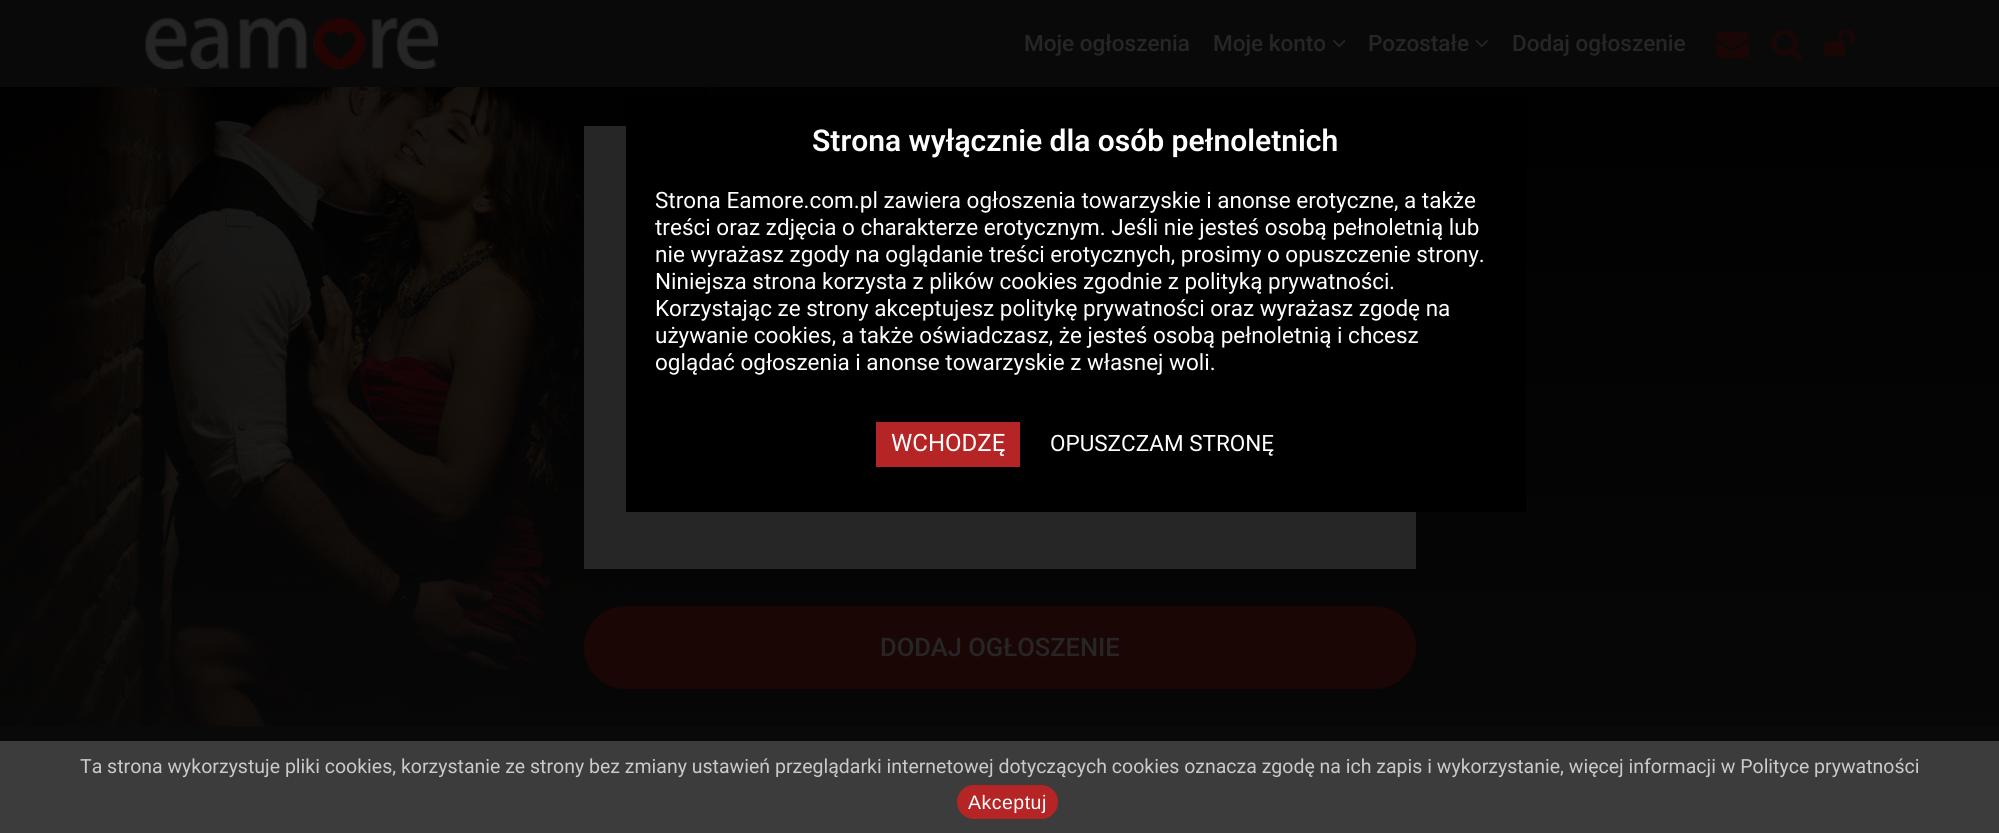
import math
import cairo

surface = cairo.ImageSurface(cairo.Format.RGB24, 1999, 833)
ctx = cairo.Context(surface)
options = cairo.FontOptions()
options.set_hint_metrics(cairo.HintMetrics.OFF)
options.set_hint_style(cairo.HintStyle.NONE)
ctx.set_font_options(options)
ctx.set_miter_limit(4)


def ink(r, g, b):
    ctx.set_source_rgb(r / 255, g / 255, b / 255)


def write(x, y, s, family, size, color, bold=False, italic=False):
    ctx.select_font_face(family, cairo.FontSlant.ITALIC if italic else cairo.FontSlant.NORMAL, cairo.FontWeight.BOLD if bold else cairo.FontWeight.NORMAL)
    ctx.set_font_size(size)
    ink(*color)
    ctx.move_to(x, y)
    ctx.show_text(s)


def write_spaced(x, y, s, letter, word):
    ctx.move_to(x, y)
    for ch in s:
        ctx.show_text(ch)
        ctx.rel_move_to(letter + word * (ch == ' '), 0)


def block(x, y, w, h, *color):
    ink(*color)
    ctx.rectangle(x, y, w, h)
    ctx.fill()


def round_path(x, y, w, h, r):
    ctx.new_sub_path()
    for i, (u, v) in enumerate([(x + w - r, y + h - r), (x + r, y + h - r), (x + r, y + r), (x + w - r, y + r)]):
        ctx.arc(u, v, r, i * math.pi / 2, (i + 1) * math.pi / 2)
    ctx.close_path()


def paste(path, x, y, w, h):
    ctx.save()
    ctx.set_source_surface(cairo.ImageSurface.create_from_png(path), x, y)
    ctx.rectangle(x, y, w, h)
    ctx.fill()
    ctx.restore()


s1 = dict(family="Roboto Medium", size=22.5, color=(38, 38, 38))
s2 = dict(family="Roboto SemiBold", size=30, color=(255, 255, 255))
s3 = dict(family="Roboto", size=22.5, color=(255, 255, 255))
s4 = dict(family="Roboto", size=24, color=(255, 255, 255))
s5 = dict(family="Roboto Medium", size=25.5, color=(38, 38, 38))
s6 = dict(family="Roboto", size=19.5, color=(202, 202, 202))

ink(9, 9, 9)
ctx.paint()
paste("pic1.png", 145, 18, 293, 51)
write(1024, 51, "Moje ogłoszenia", **s1)
write(1213, 51, "Moje konto", **s1)
paste("pic2.png", 1333, 40, 13, 8)
write(1368, 51, "Pozostałe", **s1)
paste("pic3.png", 1475, 40, 13, 8)
write(1512, 51, "Dodaj ogłoszenie", **s1)
paste("pic4.png", 1716, 31, 33, 27)
paste("pic5.png", 1771, 29, 32, 32)
paste("pic6.png", 1824, 29, 31, 27)
paste("pic7.png", 0, 87, 1999, 639)
block(584, 126, 832, 443, 38, 38, 38)
block(626, 95, 900, 417, 0, 0, 0)
write(812, 151, "Strona wyłącznie dla osób pełnoletnich", **s2)
write(655, 208, "Strona Eamore.com.pl zawiera ogłoszenia towarzyskie i anonse erotyczne", **s3)
write(1394, 208, ", a także", **s3)
write(655, 235, "treści oraz zdjęcia o charakterze erotycznym. Jeśli nie jesteś osobą pełnoletnią lub", **s3)
write(655, 262, "nie wyrażasz zgody na oglądanie treści erotycznych, prosimy o opuszczenie strony.", **s3)
write(655, 289, "Niniejsza strona korzysta z plików cookies zgodnie z polityką prywatności", **s3)
write(1389, 289, ".", **s3)
write(655, 316, "Korzystając ze strony akceptujesz politykę prywatności oraz wyrażasz zgodę na", **s3)
write(655, 343, "używanie cookies, a także oświadczasz, że jesteś osobą pełnoletnią i chcesz", **s3)
write(655, 370, "oglądać ogłoszenia i anonse towarzyskie z własnej woli.", **s3)
block(876, 422, 144, 45, 181, 37, 37)
write(891, 451, "WCHODZĘ", **s4)
write(1050, 451, "OPUSZCZAM STRONĘ", **s3)
ink(27, 6, 6)
round_path(584, 606, 832, 83, 41.5)
ctx.fill()
write(880, 656, "DODAJ OGŁOSZENIE", **s5)
block(0, 741, 1999, 92, 60, 60, 60)
write(80, 773, "Ta strona wykorzystuje pliki cookies, korzystanie ze strony bez zmiany ustawień przeglądarki internetowej dotyczących cookies oznacza zgodę na ich zapis i wykorzystanie, więcej informacji w Polityce prywatności", **s6)
ink(181, 37, 37)
round_path(957, 785, 101, 34, 17)
ctx.fill()
ctx.select_font_face("Liberation Sans")
ink(255, 255, 255)
write_spaced(968, 809, "Akceptuj", 0.5, 0)
surface.write_to_png("screenshot.png")
